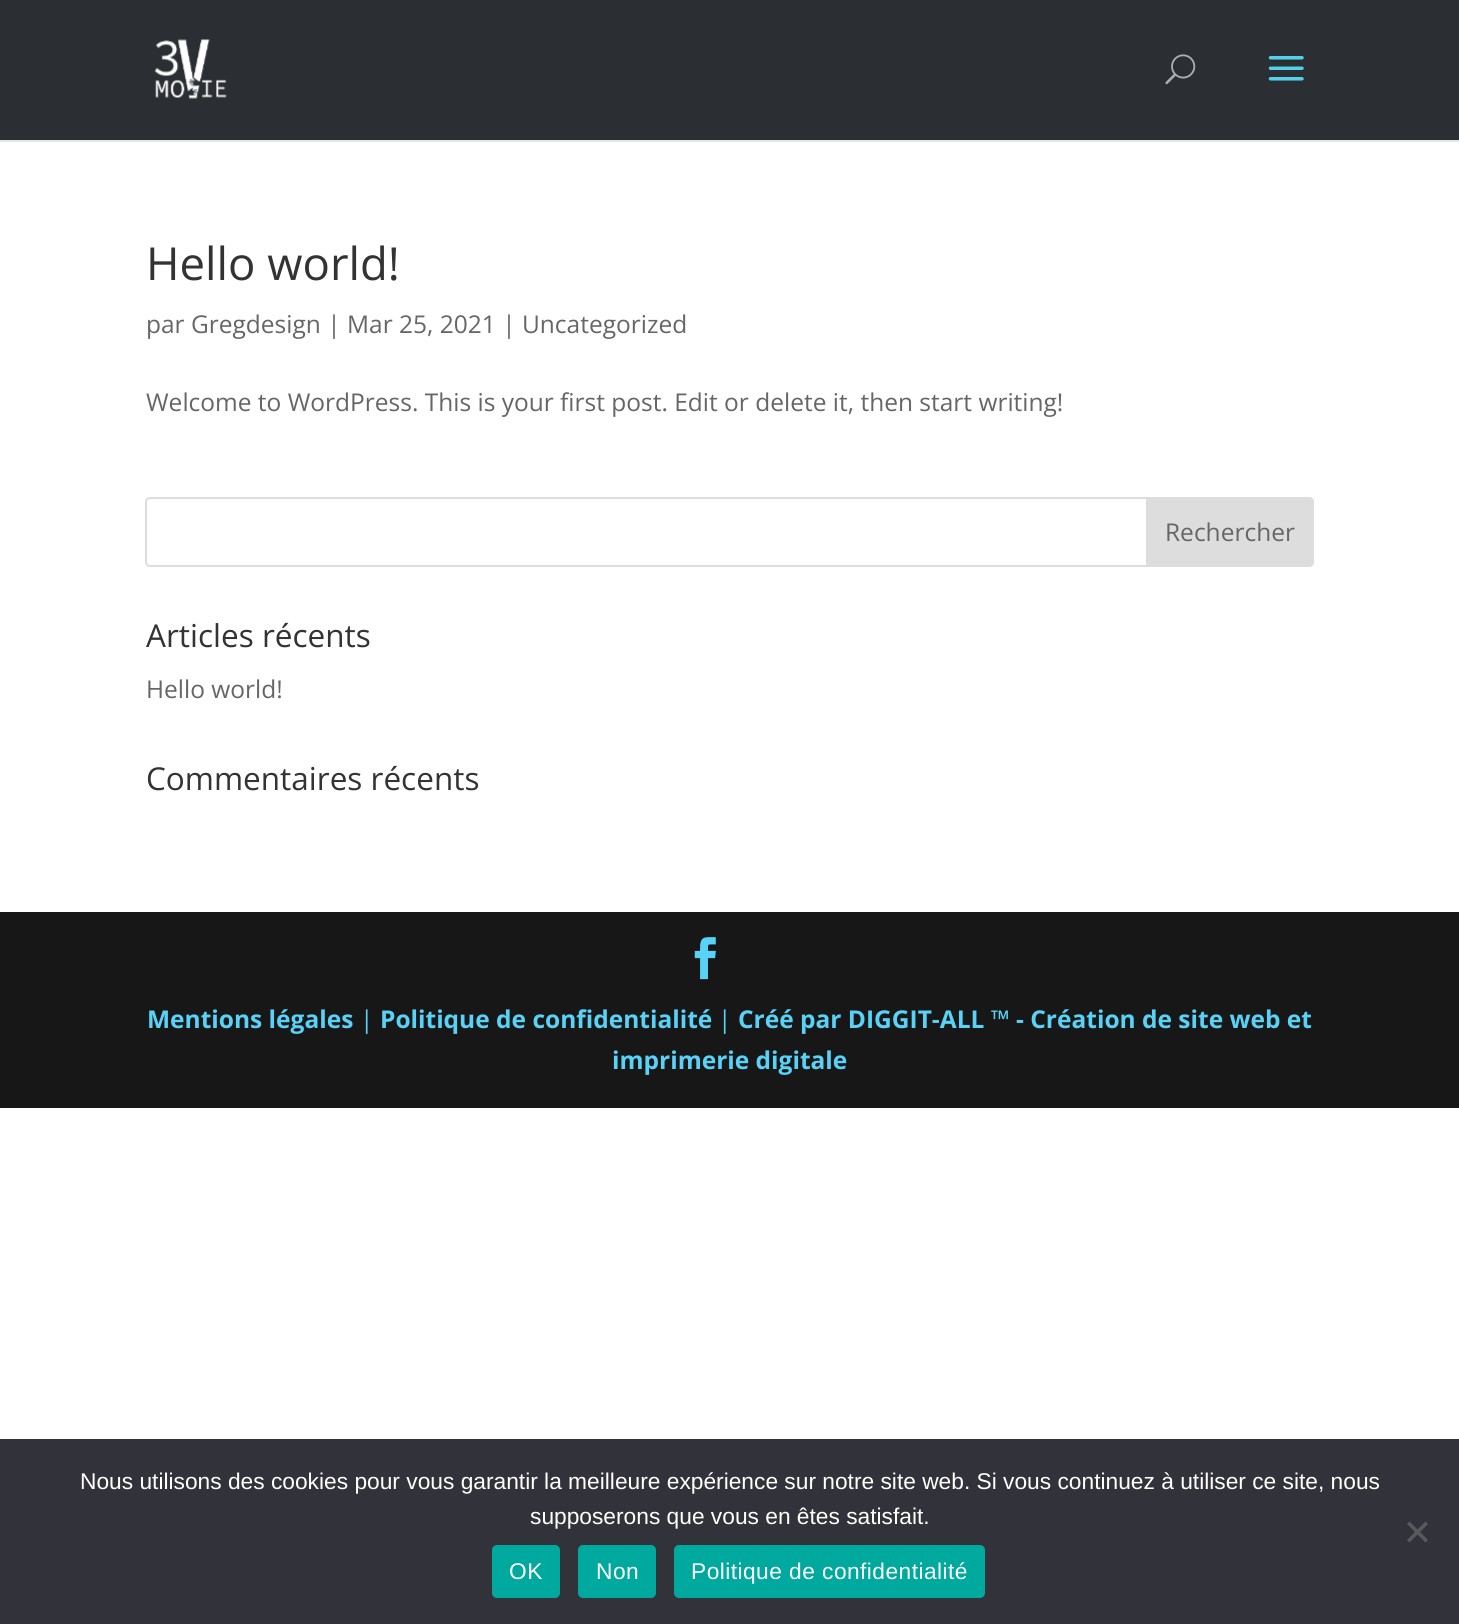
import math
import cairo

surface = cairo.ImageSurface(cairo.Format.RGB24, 1459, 1624)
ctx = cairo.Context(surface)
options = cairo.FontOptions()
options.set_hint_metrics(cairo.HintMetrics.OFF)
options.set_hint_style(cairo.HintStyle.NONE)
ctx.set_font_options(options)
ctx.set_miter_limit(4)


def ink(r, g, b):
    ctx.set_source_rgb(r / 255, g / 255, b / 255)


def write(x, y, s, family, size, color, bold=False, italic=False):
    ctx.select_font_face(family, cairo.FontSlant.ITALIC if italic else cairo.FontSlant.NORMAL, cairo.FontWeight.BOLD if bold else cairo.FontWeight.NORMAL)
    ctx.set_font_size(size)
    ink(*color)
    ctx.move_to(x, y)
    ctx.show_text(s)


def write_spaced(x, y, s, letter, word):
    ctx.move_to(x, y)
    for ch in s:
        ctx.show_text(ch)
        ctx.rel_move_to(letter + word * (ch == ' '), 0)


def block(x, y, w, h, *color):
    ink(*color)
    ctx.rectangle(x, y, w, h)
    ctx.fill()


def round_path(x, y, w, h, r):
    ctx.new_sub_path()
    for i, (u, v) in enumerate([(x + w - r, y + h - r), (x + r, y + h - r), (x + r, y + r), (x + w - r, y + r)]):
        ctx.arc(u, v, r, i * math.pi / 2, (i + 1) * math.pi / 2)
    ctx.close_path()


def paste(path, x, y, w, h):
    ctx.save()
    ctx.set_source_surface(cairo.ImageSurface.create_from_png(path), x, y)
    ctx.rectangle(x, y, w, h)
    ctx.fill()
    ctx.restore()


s1 = dict(family="Open Sans", size=45.5, color=(51, 51, 51))
s2 = dict(family="Open Sans", size=24.5, color=(102, 102, 102))
s3 = dict(family="Open Sans", size=31.5, color=(51, 51, 51))
s4 = dict(family="Open Sans", size=24.5, color=(89, 210, 247), bold=True)
s5 = dict(family="Open Sans", size=24.5, color=(89, 210, 247))
s6 = dict(family="Liberation Sans", size=22.75, color=(255, 255, 255))

ink(255, 255, 255)
ctx.paint()
ink(230, 230, 230)
ctx.new_path()
ctx.move_to(0, 140)
ctx.line_to(0, 142)
ctx.line_to(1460, 142)
ctx.line_to(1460, 2)
ctx.line_to(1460, 140)
ctx.close_path()
ctx.fill()
block(0, 0, 1459, 140, 43, 47, 51)
paste("pic1.png", 154, 39, 73, 60)
paste("pic2.png", 1165, 54, 31, 31)
paste("pic3.png", 1268, 56, 36, 25)
write(146, 280, "Hello world!", **s1)
write(146, 333, "par Gregdesign | Mar 25, 2021 | Uncategorized", **s2)
write(146, 411, "Welcome to WordPress. This is your first post. Edit or delete it, then start writing!", **s2)
round_path(146, 498, 1167, 68, 4)
ink(221, 221, 221)
ctx.stroke()
ctx.new_path()
ctx.move_to(1147, 498)
ctx.line_to(1309, 498)
ctx.curve_to(1311, 498, 1313, 500, 1313, 502)
ctx.line_to(1313, 562)
ctx.curve_to(1313, 564, 1311, 566, 1309, 566)
ctx.line_to(1147, 566)
ctx.close_path()
ctx.fill_preserve()
ctx.stroke()
write(1165, 541, "Rechercher", **s2)
write(146, 647, "Articles récents", **s3)
write(146, 698, "Hello world!", **s2)
write(146, 790, "Commentaires récents", **s3)
block(0, 912, 1459, 196, 23, 23, 23)
paste("pic4.png", 694, 937, 22, 43)
write(147, 1028, "Mentions légales", **s4)
write(360, 1028, "|", **s5)
write(380, 1028, "Politique de confidentialité", **s4)
write(718, 1028, "|", **s5)
write(738, 1028, "Créé par DIGGIT-ALL ™ - Création de site web et", **s4)
write(612, 1069, "imprimerie digitale", **s4)
block(0, 1439, 1459, 185, 50, 50, 58)
write(80, 1489, "Nous utilisons des cookies pour vous garantir la meilleure expérience sur notre site web. Si vous continuez à utiliser ce site, nous", **s6)
write(530, 1524, "supposerons que vous en êtes satisfait.", **s6)
ink(89, 89, 93)
ctx.new_path()
ctx.move_to(1425.5, 1521.5)
ctx.line_to(1428, 1524)
ctx.line_to(1409.5, 1542.5)
ctx.line_to(1407, 1540)
ctx.close_path()
ctx.fill()
ctx.new_path()
ctx.move_to(1407, 1524)
ctx.line_to(1409.5, 1521.5)
ctx.line_to(1428, 1540)
ctx.line_to(1425.5, 1542.5)
ctx.close_path()
ctx.fill()
ink(0, 169, 157)
round_path(492, 1545, 68, 53, 5)
ctx.fill()
ink(255, 255, 255)
write_spaced(509, 1579, "OK", 0.45, 0)
ink(0, 169, 157)
round_path(578, 1545, 78, 53, 5)
ctx.fill()
ink(255, 255, 255)
write_spaced(596, 1579, "Non", 0.45, 0)
ink(0, 169, 157)
round_path(674, 1545, 311, 53, 5)
ctx.fill()
ink(255, 255, 255)
write_spaced(691, 1579, "Politique de confidentialité", 0.45, 0)
surface.write_to_png("screenshot.png")
